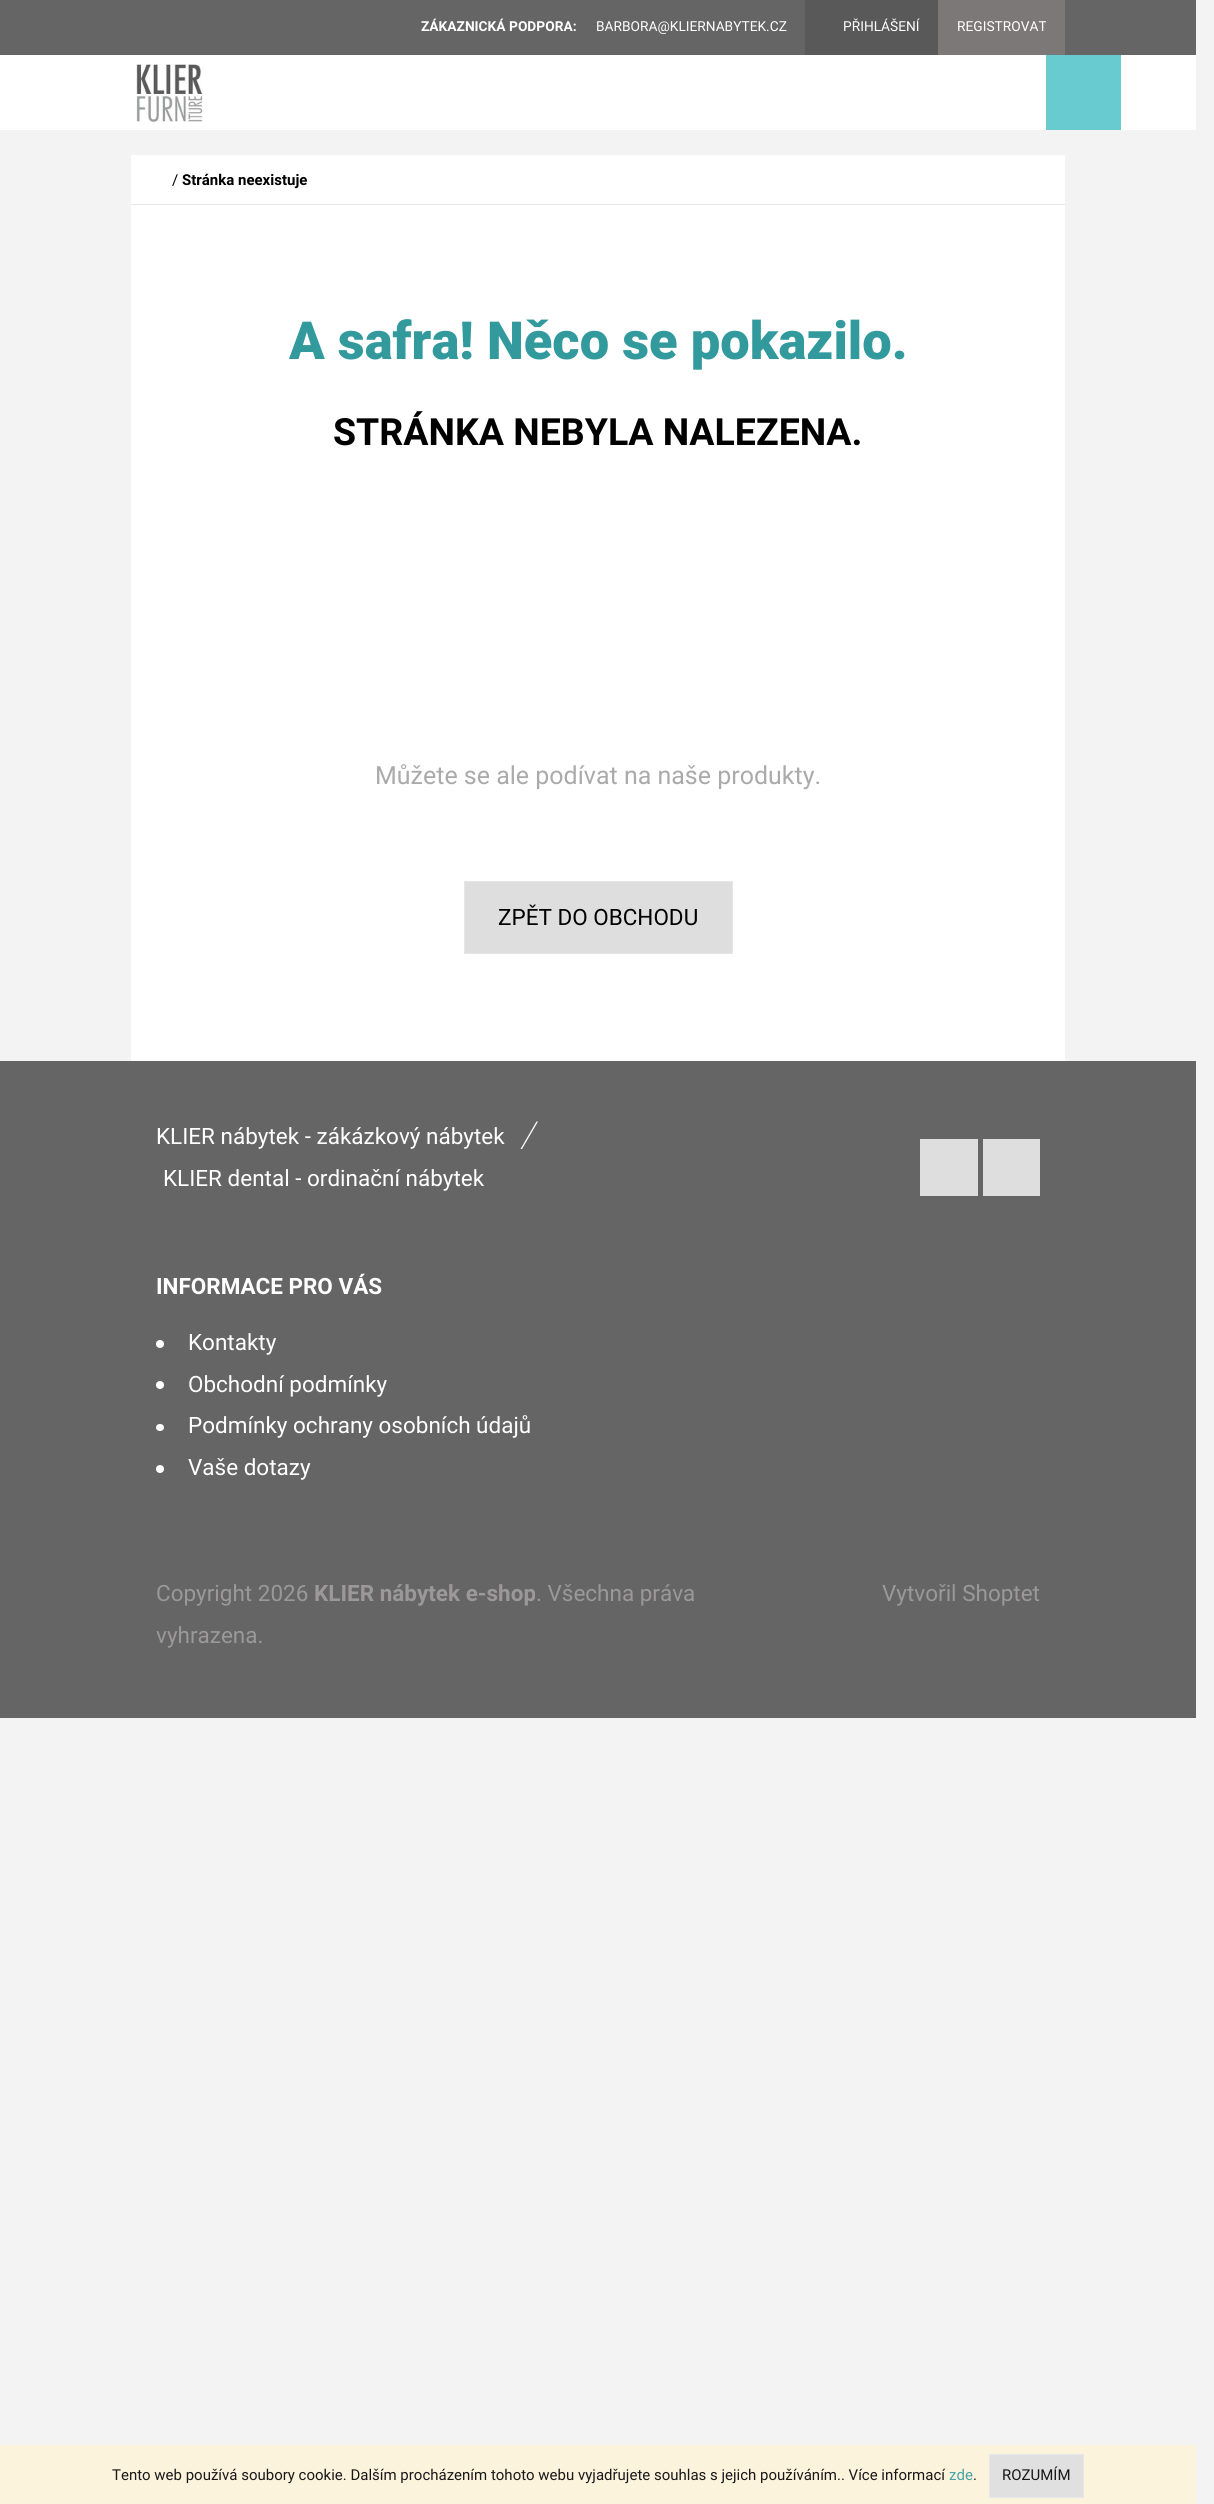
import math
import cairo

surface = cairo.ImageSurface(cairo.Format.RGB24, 1214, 2504)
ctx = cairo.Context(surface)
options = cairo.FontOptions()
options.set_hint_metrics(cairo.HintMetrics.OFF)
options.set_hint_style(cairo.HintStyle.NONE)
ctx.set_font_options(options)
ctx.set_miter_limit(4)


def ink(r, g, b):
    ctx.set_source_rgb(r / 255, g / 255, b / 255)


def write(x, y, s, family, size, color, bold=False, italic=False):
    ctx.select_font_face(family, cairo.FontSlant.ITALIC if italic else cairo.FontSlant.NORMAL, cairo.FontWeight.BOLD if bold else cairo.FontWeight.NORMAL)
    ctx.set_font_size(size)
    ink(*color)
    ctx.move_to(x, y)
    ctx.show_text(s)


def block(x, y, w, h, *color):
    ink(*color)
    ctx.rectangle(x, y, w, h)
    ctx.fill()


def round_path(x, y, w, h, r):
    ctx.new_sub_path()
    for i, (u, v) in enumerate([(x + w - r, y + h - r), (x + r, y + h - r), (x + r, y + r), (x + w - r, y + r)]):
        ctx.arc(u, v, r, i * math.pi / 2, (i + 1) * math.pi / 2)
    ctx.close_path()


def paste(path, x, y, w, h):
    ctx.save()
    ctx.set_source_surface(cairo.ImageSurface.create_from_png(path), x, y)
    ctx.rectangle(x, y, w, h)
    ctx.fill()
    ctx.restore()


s1 = dict(family="Roboto", size=13.75, color=(255, 255, 255), bold=True)
s2 = dict(family="Roboto", size=13.75, color=(255, 255, 255))
s3 = dict(family="Roboto", size=15, color=(0, 0, 0))
s4 = dict(family="Roboto", size=15, color=(0, 0, 0), bold=True)
s5 = dict(family="Roboto Black", size=52.5, color=(50, 154, 157))
s6 = dict(family="Roboto", size=37.5, color=(0, 0, 0), bold=True)
s7 = dict(family="Roboto", size=25, color=(170, 170, 170))
s8 = dict(family="Roboto", size=22.5, color=(0, 0, 0))
s9 = dict(family="Roboto", size=22.5, color=(255, 255, 255))
s10 = dict(family="Roboto", size=22.5, color=(255, 255, 255), bold=True)
s11 = dict(family="Roboto", size=22.5, color=(154, 152, 152))
s12 = dict(family="Roboto", size=22.5, color=(154, 152, 152), bold=True)
s13 = dict(family="Roboto", size=15, color=(24, 24, 24))
s14 = dict(family="Roboto", size=15, color=(69, 163, 166))

ink(243, 243, 243)
ctx.paint()
block(0, 0, 1196, 55, 101, 101, 101)
write(421, 31, "ZÁKAZNICKÁ PODPORA:", **s1)
write(596, 31, "BARBORA@KLIERNABYTEK.CZ", **s2)
block(805, 0, 133, 55, 89, 89, 89)
write(843, 31, "PŘIHLÁŠENÍ", **s2)
block(938, 0, 127, 55, 125, 120, 120)
write(957, 31, "REGISTROVAT", **s2)
block(0, 55, 1196, 75, 255, 255, 255)
paste("pic1.png", 136, 64, 67, 58)
block(1046, 55, 75, 75, 104, 203, 208)
block(131, 155, 934, 906, 255, 255, 255)
block(131, 204, 934, 1, 230, 230, 230)
write(172, 185, "/", **s3)
write(182, 185, "Stránka neexistuje", **s4)
write(289, 359, "A safra! Něco se pokazilo.", **s5)
write(333, 445, "STRÁNKA NEBYLA NALEZENA.", **s6)
write(375, 784, "Můžete se ale podívat na naše produkty.", **s7)
ink(222, 222, 222)
ctx.rectangle(464.5, 881.5, 268, 72)
ctx.fill_preserve()
ink(230, 230, 230)
ctx.set_line_width(1)
ctx.stroke()
write(498, 925, "ZPĚT DO OBCHODU", **s8)
block(0, 1061, 1196, 657, 101, 101, 101)
write(156, 1144, "KLIER nábytek - zákázkový nábytek", **s9)
ctx.new_path()
ctx.move_to(536.5, 1121.5)
ctx.line_to(538, 1121.5)
ctx.line_to(522, 1149)
ctx.line_to(520.5, 1149)
ctx.close_path()
ctx.fill()
write(163, 1186, "KLIER dental - ordinační nábytek", **s9)
block(920, 1139, 58, 57, 222, 222, 222)
block(983, 1139, 57, 57, 222, 222, 222)
write(156, 1294, "INFORMACE PRO VÁS", **s10)
ctx.new_path()
ctx.arc(160, 1344, 4, 0, 2 * math.pi)
ctx.fill()
write(188, 1350, "Kontakty", **s9)
ctx.new_path()
ctx.arc(160, 1385, 4, 0, 2 * math.pi)
ctx.fill()
write(188, 1392, "Obchodní podmínky", **s9)
round_path(156, 1424, 8, 7, 3.5)
ctx.fill()
write(188, 1433, "Podmínky ochrany osobních údajů", **s9)
ctx.new_path()
ctx.arc(160, 1469, 4, 0, 2 * math.pi)
ctx.fill()
write(188, 1475, "Vaše dotazy", **s9)
write(156, 1601, "Copyright 2026", **s11)
write(314, 1601, "KLIER nábytek e-shop", **s12)
write(536, 1601, ". Všechna práva", **s11)
write(882, 1601, "Vytvořil Shoptet", **s11)
write(156, 1643, "vyhrazena.", **s11)
block(0, 2445, 1196, 59, 252, 243, 221)
write(112, 2480, "Tento web používá soubory cookie. Dalším procházením tohoto webu vyjadřujete souhlas s jejich používáním.. Více informací", **s13)
write(949, 2480, "zde", **s14)
write(973, 2480, ".", **s13)
ink(224, 224, 224)
ctx.rectangle(989.5, 2454.5, 94, 43)
ctx.fill_preserve()
ink(231, 231, 231)
ctx.stroke()
write(1002, 2480, "ROZUMÍM", **s13)
surface.write_to_png("screenshot.png")
